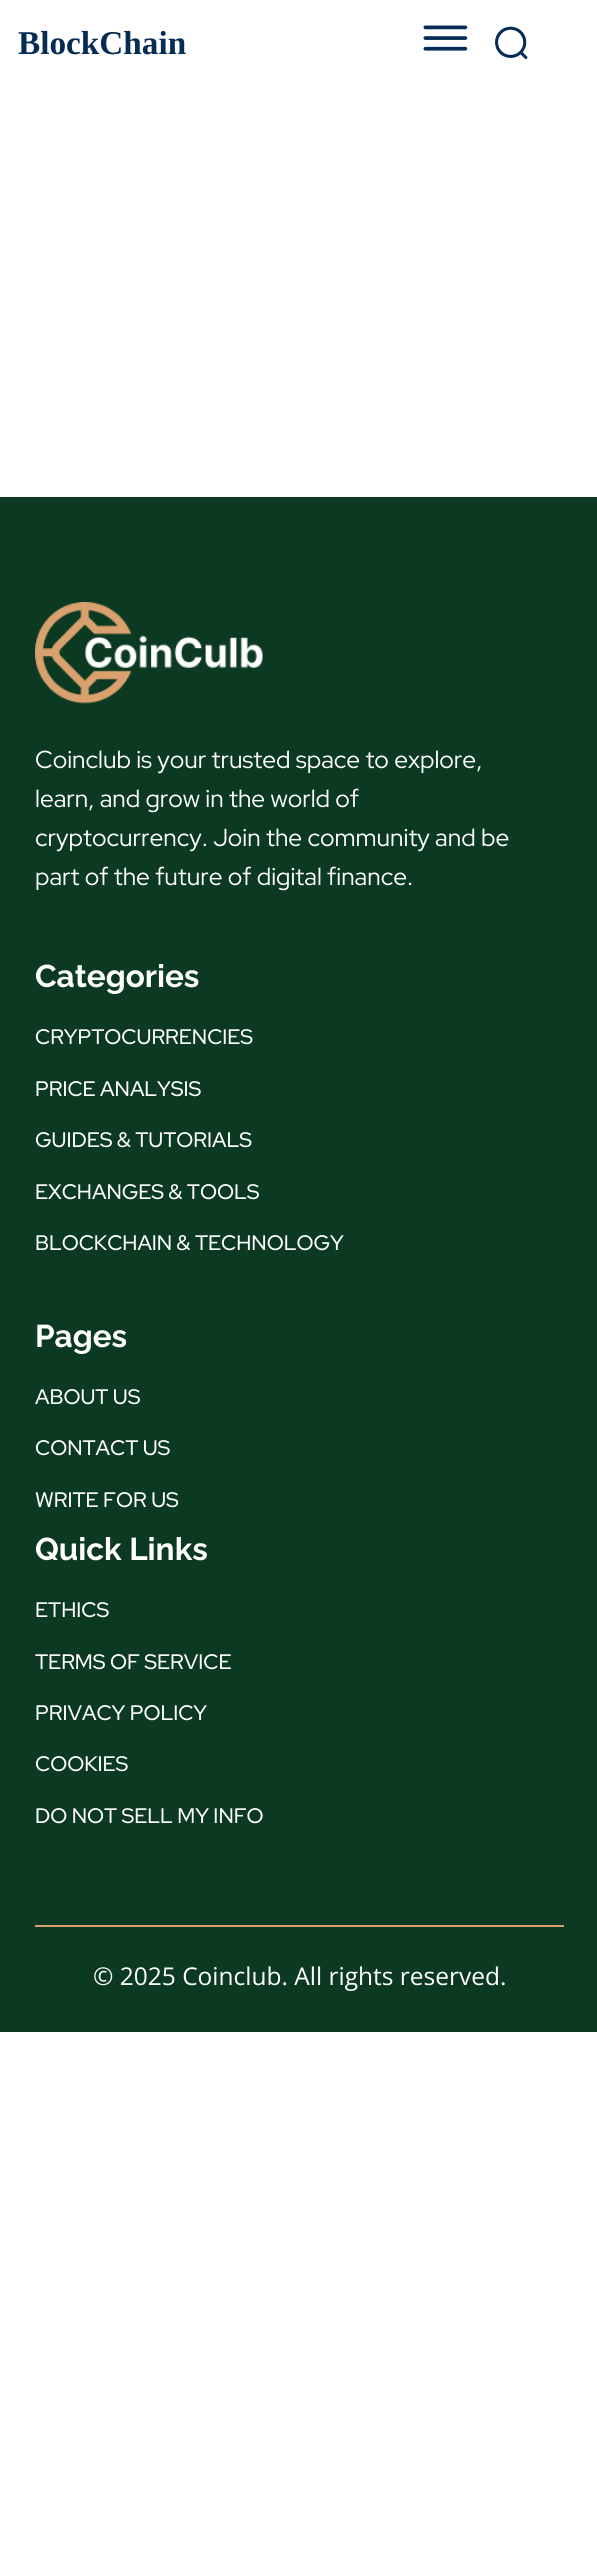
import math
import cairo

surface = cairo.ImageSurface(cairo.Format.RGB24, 597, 2553)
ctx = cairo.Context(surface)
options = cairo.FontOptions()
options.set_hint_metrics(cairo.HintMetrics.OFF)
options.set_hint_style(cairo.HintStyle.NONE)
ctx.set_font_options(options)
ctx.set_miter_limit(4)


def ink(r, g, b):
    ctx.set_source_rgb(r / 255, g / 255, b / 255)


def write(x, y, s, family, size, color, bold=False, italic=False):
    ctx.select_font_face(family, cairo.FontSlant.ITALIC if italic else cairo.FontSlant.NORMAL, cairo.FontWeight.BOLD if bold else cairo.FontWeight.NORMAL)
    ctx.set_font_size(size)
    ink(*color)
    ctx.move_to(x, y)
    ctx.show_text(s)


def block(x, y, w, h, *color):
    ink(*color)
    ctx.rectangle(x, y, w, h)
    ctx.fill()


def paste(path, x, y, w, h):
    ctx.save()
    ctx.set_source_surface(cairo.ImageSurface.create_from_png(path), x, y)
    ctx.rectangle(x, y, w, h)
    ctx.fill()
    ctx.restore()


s1 = dict(family="Liberation Serif", size=33.25, color=(5, 44, 84), bold=True)
s2 = dict(family="Red Hat Display", size=24.5, color=(255, 255, 255))
s3 = dict(family="Raleway", size=31.5, color=(255, 255, 255), bold=True)
s4 = dict(family="Red Hat Display Medium", size=21, color=(255, 255, 255))
s5 = dict(family="Open Sans", size=24.5, color=(255, 255, 255))

ink(255, 255, 255)
ctx.paint()
write(18, 54, "BlockChain", **s1)
paste("pic1.png", 423, 25, 45, 26)
paste("pic2.png", 495, 26, 33, 34)
block(0, 497, 597, 1535, 12, 57, 34)
paste("pic3.png", 35, 602, 228, 102)
write(35, 768, "Coinclub is your trusted space to explore,", **s2)
write(35, 807, "learn, and grow in the world of", **s2)
write(35, 846, "cryptocurrency. Join the community and be", **s2)
write(35, 885, "part of the future of digital finance.", **s2)
write(35, 987, "Categories", **s3)
write(35, 1044, "CRYPTOCURRENCIES", **s4)
write(35, 1096, "PRICE ANALYSIS", **s4)
write(35, 1147, "GUIDES & TUTORIALS", **s4)
write(35, 1199, "EXCHANGES & TOOLS", **s4)
write(35, 1250, "BLOCKCHAIN & TECHNOLOGY", **s4)
write(35, 1347, "Pages", **s3)
write(35, 1404, "ABOUT US", **s4)
write(35, 1455, "CONTACT US", **s4)
write(35, 1507, "WRITE FOR US", **s4)
write(35, 1560, "Quick Links", **s3)
write(35, 1617, "ETHICS", **s4)
write(35, 1669, "TERMS OF SERVICE", **s4)
write(35, 1720, "PRIVACY POLICY", **s4)
write(35, 1771, "COOKIES", **s4)
write(35, 1823, "DO NOT SELL MY INFO", **s4)
block(35, 1925, 529, 2, 216, 161, 110)
write(93, 1985, "© 2025 Coinclub. All rights reserved.", **s5)
surface.write_to_png("screenshot.png")
